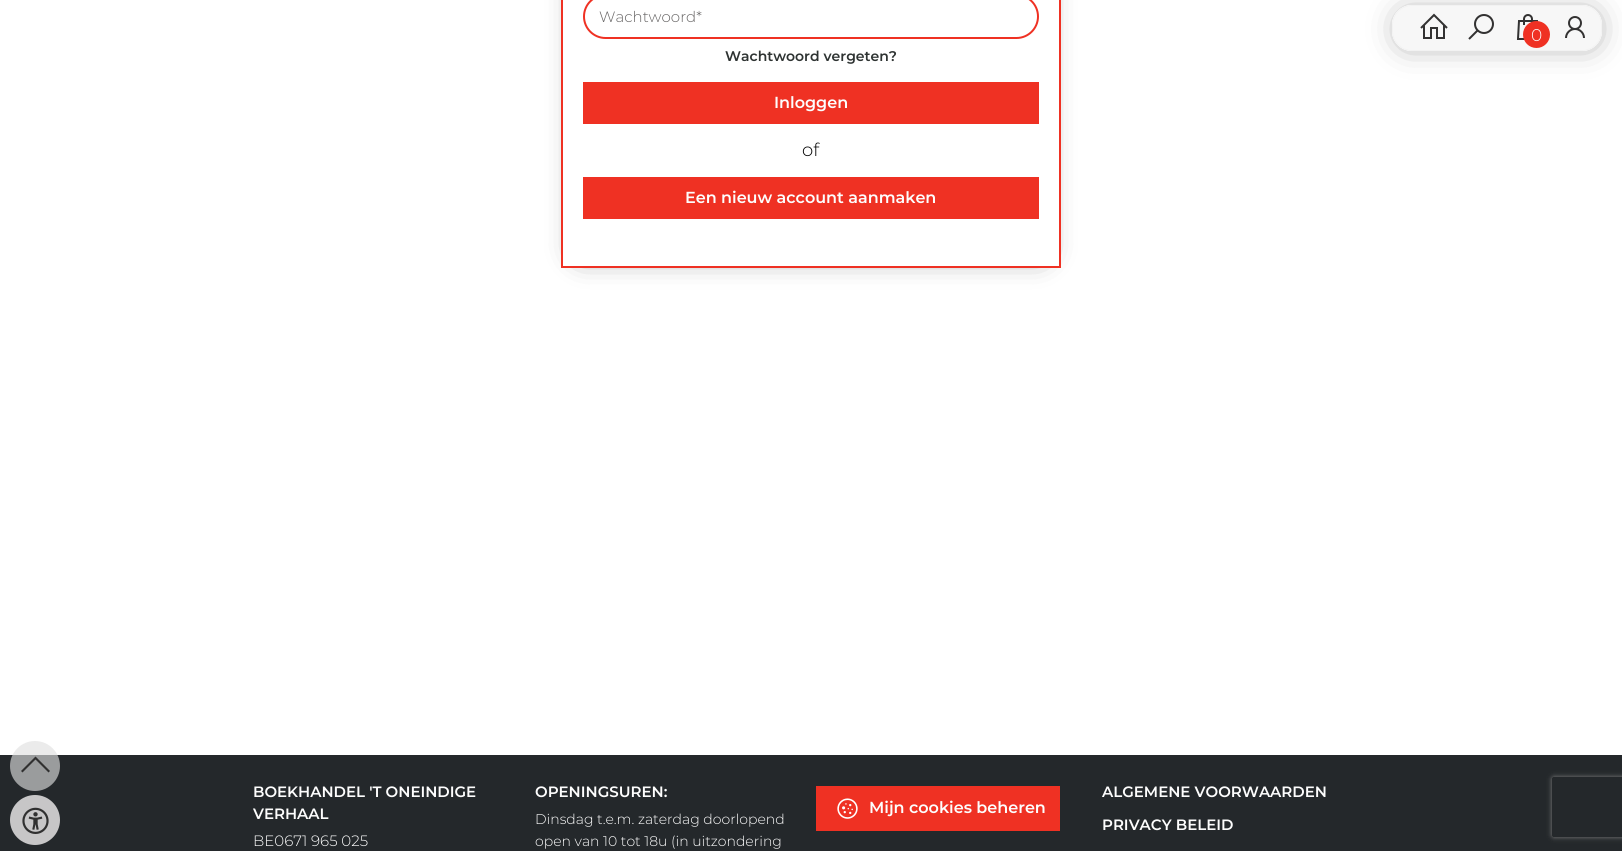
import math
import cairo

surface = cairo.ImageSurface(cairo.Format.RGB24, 1622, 851)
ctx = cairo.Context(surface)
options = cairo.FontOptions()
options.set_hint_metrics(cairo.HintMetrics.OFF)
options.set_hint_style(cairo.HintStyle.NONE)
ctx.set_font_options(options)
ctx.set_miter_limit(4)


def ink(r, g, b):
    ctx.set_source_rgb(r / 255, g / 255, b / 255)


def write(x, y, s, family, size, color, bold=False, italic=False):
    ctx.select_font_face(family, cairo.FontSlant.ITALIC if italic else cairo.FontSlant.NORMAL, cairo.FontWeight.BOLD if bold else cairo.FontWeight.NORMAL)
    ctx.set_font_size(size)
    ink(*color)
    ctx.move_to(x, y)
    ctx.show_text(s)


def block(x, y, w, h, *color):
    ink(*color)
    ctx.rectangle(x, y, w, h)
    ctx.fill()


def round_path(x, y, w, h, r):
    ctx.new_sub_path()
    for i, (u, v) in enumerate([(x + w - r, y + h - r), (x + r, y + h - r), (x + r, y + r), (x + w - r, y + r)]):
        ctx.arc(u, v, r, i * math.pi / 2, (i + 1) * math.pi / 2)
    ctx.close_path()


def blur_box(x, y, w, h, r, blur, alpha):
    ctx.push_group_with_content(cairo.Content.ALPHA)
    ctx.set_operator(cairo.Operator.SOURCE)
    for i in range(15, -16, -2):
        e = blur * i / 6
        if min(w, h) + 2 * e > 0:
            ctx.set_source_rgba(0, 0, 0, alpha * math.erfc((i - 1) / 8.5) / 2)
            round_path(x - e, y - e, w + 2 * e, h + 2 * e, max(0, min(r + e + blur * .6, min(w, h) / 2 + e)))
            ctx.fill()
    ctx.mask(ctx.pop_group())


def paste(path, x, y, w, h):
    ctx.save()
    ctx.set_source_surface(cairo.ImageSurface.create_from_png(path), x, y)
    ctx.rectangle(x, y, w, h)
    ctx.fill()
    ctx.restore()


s1 = dict(family="Montserrat Light", size=15, color=(103, 101, 101))
s2 = dict(family="Montserrat SemiBold", size=14, color=(46, 51, 50))
s3 = dict(family="Montserrat SemiBold", size=16, color=(253, 253, 253))
s4 = dict(family="Montserrat Light", size=18, color=(0, 0, 0))
s5 = dict(family="Montserrat Light", size=17, color=(253, 253, 253))
s6 = dict(family="Montserrat SemiBold", size=15, color=(253, 253, 253))
s7 = dict(family="Montserrat Light", size=15, color=(253, 253, 253))
s8 = dict(family="Montserrat Light", size=14, color=(253, 253, 253))

ink(255, 255, 255)
ctx.paint()
ctx.save()
ctx.set_fill_rule(cairo.FillRule.EVEN_ODD)
ctx.new_path()
ctx.move_to(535, 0)
ctx.line_to(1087, 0)
ctx.line_to(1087, 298)
ctx.line_to(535, 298)
ctx.close_path()
ctx.move_to(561, -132)
ctx.line_to(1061, -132)
ctx.line_to(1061, 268)
ctx.line_to(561, 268)
ctx.close_path()
ctx.clip()
ink(0, 0, 0)
blur_box(581, -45, 460, 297, 0, 15, 0.7)
ctx.restore()
ctx.rectangle(562, -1, 498, 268)
ink(239, 49, 35)
ctx.stroke()
round_path(584, -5, 454, 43, 21.5)
ctx.stroke()
write(599, 22, "Wachtwoord*", **s1)
write(725, 61, "Wachtwoord vergeten?", **s2)
block(583, 82, 456, 42, 239, 49, 35)
write(774, 108, "Inloggen", **s3)
write(802, 156, "of", **s4)
block(583, 177, 456, 42, 239, 49, 35)
write(685, 203, "Een nieuw account aanmaken", **s3)
block(0, 755, 1622, 96, 36, 40, 43)
ctx.set_source_rgba(0.878, 0.878, 0.878, 0.63)
ctx.new_path()
ctx.arc(35, 766, 25, 0, 2 * math.pi)
ctx.fill()
ink(48, 48, 48)
ctx.new_path()
ctx.move_to(35.5, 756.5)
ctx.line_to(21, 771)
ctx.line_to(22.5, 772.5)
ctx.line_to(35.5, 759.5)
ctx.line_to(48.5, 772.5)
ctx.line_to(50, 771)
ctx.close_path()
ctx.fill()
ink(199, 198, 199)
ctx.arc(35, 820, 25, 0, 2 * math.pi)
ctx.fill()
paste("pic1.png", 22, 807, 27, 27)
ctx.save()
ctx.set_fill_rule(cairo.FillRule.EVEN_ODD)
ctx.new_path()
ctx.move_to(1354, 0)
ctx.line_to(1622, 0)
ctx.line_to(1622, 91)
ctx.line_to(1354, 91)
ctx.close_path()
ctx.move_to(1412, 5)
ctx.line_to(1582, 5)
ctx.curve_to(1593, 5, 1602, 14, 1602, 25)
ctx.line_to(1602, 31)
ctx.curve_to(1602, 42, 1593, 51, 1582, 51)
ctx.line_to(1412, 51)
ctx.curve_to(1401, 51, 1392, 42, 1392, 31)
ctx.line_to(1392, 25)
ctx.curve_to(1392, 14, 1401, 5, 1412, 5)
ctx.close_path()
ctx.clip()
ink(0, 0, 0)
blur_box(1411, 24, 174, 10, 2, 18.5, 0.73)
ctx.restore()
ctx.set_source_rgba(0.949, 0.949, 0.949, 0.61)
round_path(1392.5, 5.5, 209, 45, 19.5)
ctx.fill_preserve()
ink(242, 242, 242)
ctx.set_line_width(1)
ctx.stroke()
paste("pic2.png", 1420, 13, 28, 26)
paste("pic3.png", 1468, 14, 26, 26)
paste("pic4.png", 1516, 14, 23, 26)
ink(239, 49, 35)
ctx.arc(1536.5, 34.5, 13.5, 0, 2 * math.pi)
ctx.fill()
write(1531, 41, "0", **s5)
paste("pic5.png", 1565, 16, 20, 22)
write(253, 797, "BOEKHANDEL 'T ONEINDIGE", **s6)
write(253, 819, "VERHAAL", **s6)
write(253, 846, "BE0671 965 025", **s7)
write(535, 797, "OPENINGSUREN:", **s6)
write(535, 824, "Dinsdag t.e.m. zaterdag doorlopend", **s8)
write(535, 846, "open van 10 tot 18u (in uitzondering", **s8)
block(816, 786, 244, 45, 239, 49, 35)
paste("pic6.png", 837, 798, 21, 21)
write(869, 813, "Mijn cookies beheren", **s3)
write(1102, 797, "ALGEMENE VOORWAARDEN", **s6)
write(1102, 830, "PRIVACY BELEID", **s6)
ctx.save()
ctx.set_fill_rule(cairo.FillRule.EVEN_ODD)
ctx.new_path()
ctx.move_to(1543, 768)
ctx.line_to(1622, 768)
ctx.line_to(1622, 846)
ctx.line_to(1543, 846)
ctx.close_path()
ctx.move_to(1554, 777)
ctx.line_to(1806, 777)
ctx.curve_to(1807, 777, 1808, 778, 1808, 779)
ctx.line_to(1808, 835)
ctx.curve_to(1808, 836, 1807, 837, 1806, 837)
ctx.line_to(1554, 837)
ctx.curve_to(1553, 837, 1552, 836, 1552, 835)
ctx.line_to(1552, 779)
ctx.curve_to(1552, 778, 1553, 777, 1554, 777)
ctx.close_path()
ctx.clip()
ink(128, 128, 128)
blur_box(1552, 777, 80, 60, 2, 2.5, 1)
ctx.restore()
surface.write_to_png("screenshot.png")
